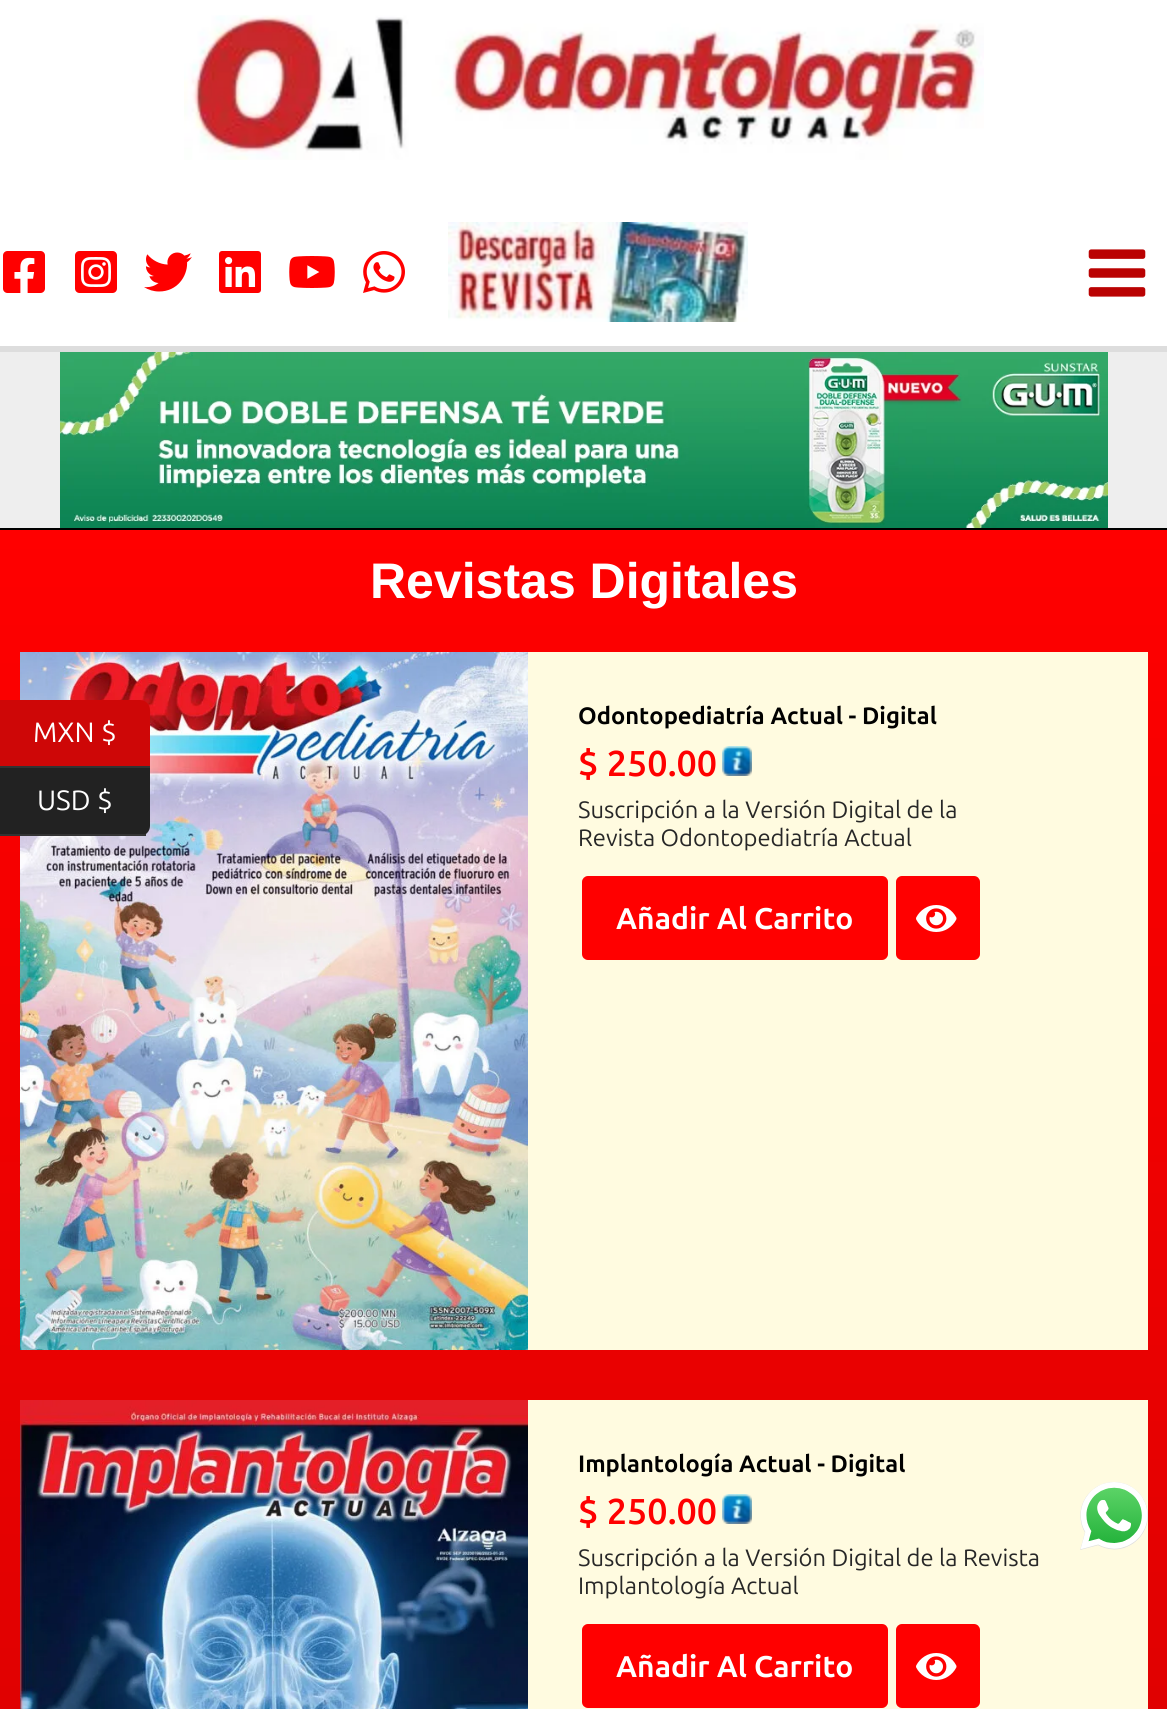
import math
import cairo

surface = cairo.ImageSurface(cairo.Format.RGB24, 1167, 1709)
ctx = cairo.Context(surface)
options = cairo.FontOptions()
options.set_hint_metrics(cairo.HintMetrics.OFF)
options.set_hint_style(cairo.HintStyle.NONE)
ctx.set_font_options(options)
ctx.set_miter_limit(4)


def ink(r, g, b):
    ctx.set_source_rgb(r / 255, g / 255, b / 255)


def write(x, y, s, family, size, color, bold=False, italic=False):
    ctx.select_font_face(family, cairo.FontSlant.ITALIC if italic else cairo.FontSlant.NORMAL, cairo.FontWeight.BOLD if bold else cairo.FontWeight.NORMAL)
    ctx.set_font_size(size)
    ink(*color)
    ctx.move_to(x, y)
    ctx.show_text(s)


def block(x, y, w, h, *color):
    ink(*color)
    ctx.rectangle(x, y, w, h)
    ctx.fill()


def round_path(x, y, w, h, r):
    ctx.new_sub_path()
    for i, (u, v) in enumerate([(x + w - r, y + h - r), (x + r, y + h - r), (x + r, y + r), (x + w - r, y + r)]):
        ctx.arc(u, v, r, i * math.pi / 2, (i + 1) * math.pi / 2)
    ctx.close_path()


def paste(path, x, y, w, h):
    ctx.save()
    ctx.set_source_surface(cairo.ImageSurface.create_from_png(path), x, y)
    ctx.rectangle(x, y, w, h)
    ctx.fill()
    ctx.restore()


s1 = dict(family="Ubuntu", size=28, color=(255, 255, 255))
s2 = dict(family="Liberation Sans", size=50, color=(255, 255, 255), bold=True)
s3 = dict(family="Ubuntu", size=23.75, color=(0, 0, 0), bold=True)
s4 = dict(family="Ubuntu SemiBold", size=36, color=(255, 0, 0))
s5 = dict(family="Ubuntu", size=23.75, color=(39, 39, 39))
s6 = dict(family="Ubuntu", size=30, color=(255, 255, 255), bold=True)

ink(255, 255, 255)
ctx.paint()
gradient = cairo.LinearGradient(584, 530, 584, 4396)
gradient.add_color_stop_rgba(0, 1, 0, 0, 1)
gradient.add_color_stop_rgba(1, 0.6, 0.012, 0.012, 1)
ctx.set_source(gradient)
ctx.rectangle(0, 530, 1167, 1179)
ctx.fill()
paste("pic11.png", 20, 652, 508, 698)
ink(206, 7, 7)
ctx.new_path()
ctx.move_to(0, 700)
ctx.line_to(140, 700)
ctx.curve_to(145.5, 700, 150, 704.5, 150, 710)
ctx.line_to(150, 768)
ctx.line_to(0, 768)
ctx.close_path()
ctx.fill()
block(0, 766, 150, 2, 51, 51, 51)
write(33, 742, "MXN $", **s1)
ink(34, 34, 34)
ctx.new_path()
ctx.move_to(0, 768)
ctx.line_to(150, 768)
ctx.line_to(150, 826)
ctx.curve_to(150, 831.5, 145.5, 836, 140, 836)
ctx.line_to(0, 836)
ctx.close_path()
ctx.fill()
block(0, 834, 146, 2, 51, 51, 51)
write(37, 810, "USD $", **s1)
paste("pic1.png", 184, 15, 800, 145)
block(0, 346, 1167, 6, 221, 221, 221)
paste("pic2.png", 3, 251, 42, 42)
paste("pic3.png", 75, 251, 42, 42)
paste("pic4.png", 144, 252, 48, 40)
paste("pic5.png", 219, 251, 42, 42)
paste("pic6.png", 289, 256, 46, 32)
paste("pic7.png", 363, 251, 42, 42)
paste("pic8.png", 448, 222, 300, 100)
paste("pic9.png", 1088, 249, 58, 48)
block(0, 352, 1167, 176, 238, 238, 238)
block(0, 528, 1167, 2, 0, 0, 0)
paste("pic10.png", 60, 352, 1048, 176)
write(370, 598, "Revistas Digitales", **s2)
block(528, 652, 620, 698, 255, 251, 224)
write(578, 724, "Odontopediatría Actual - Digital", **s3)
write(578, 776, "$ 250.00", **s4)
paste("pic12.png", 722, 746, 30, 30)
write(578, 818, "Suscripción a la Versión Digital de la", **s5)
write(578, 846, "Revista Odontopediatría Actual", **s5)
ink(255, 0, 0)
round_path(584, 878, 302, 80, 4)
ctx.fill_preserve()
ctx.set_line_width(4)
ctx.stroke()
write(616, 929, "Añadir Al Carrito", **s6)
ink(255, 0, 0)
round_path(898, 878, 80, 80, 4)
ctx.fill_preserve()
ctx.stroke()
paste("pic13.png", 916, 905, 41, 27)
block(528, 1400, 620, 309, 255, 251, 224)
paste("pic14.png", 20, 1400, 508, 309)
write(578, 1472, "Implantología Actual - Digital", **s3)
write(578, 1524, "$ 250.00", **s4)
paste("pic12.png", 722, 1494, 30, 30)
write(578, 1566, "Suscripción a la Versión Digital de la Revista", **s5)
write(578, 1594, "Implantología Actual", **s5)
ink(255, 0, 0)
round_path(584, 1626, 302, 80, 4)
ctx.fill_preserve()
ctx.stroke()
write(616, 1677, "Añadir Al Carrito", **s6)
ink(255, 0, 0)
round_path(898, 1626, 80, 80, 4)
ctx.fill_preserve()
ctx.stroke()
paste("pic13.png", 916, 1653, 41, 27)
paste("pic15.png", 1080, 1482, 68, 68)
surface.write_to_png("screenshot.png")
